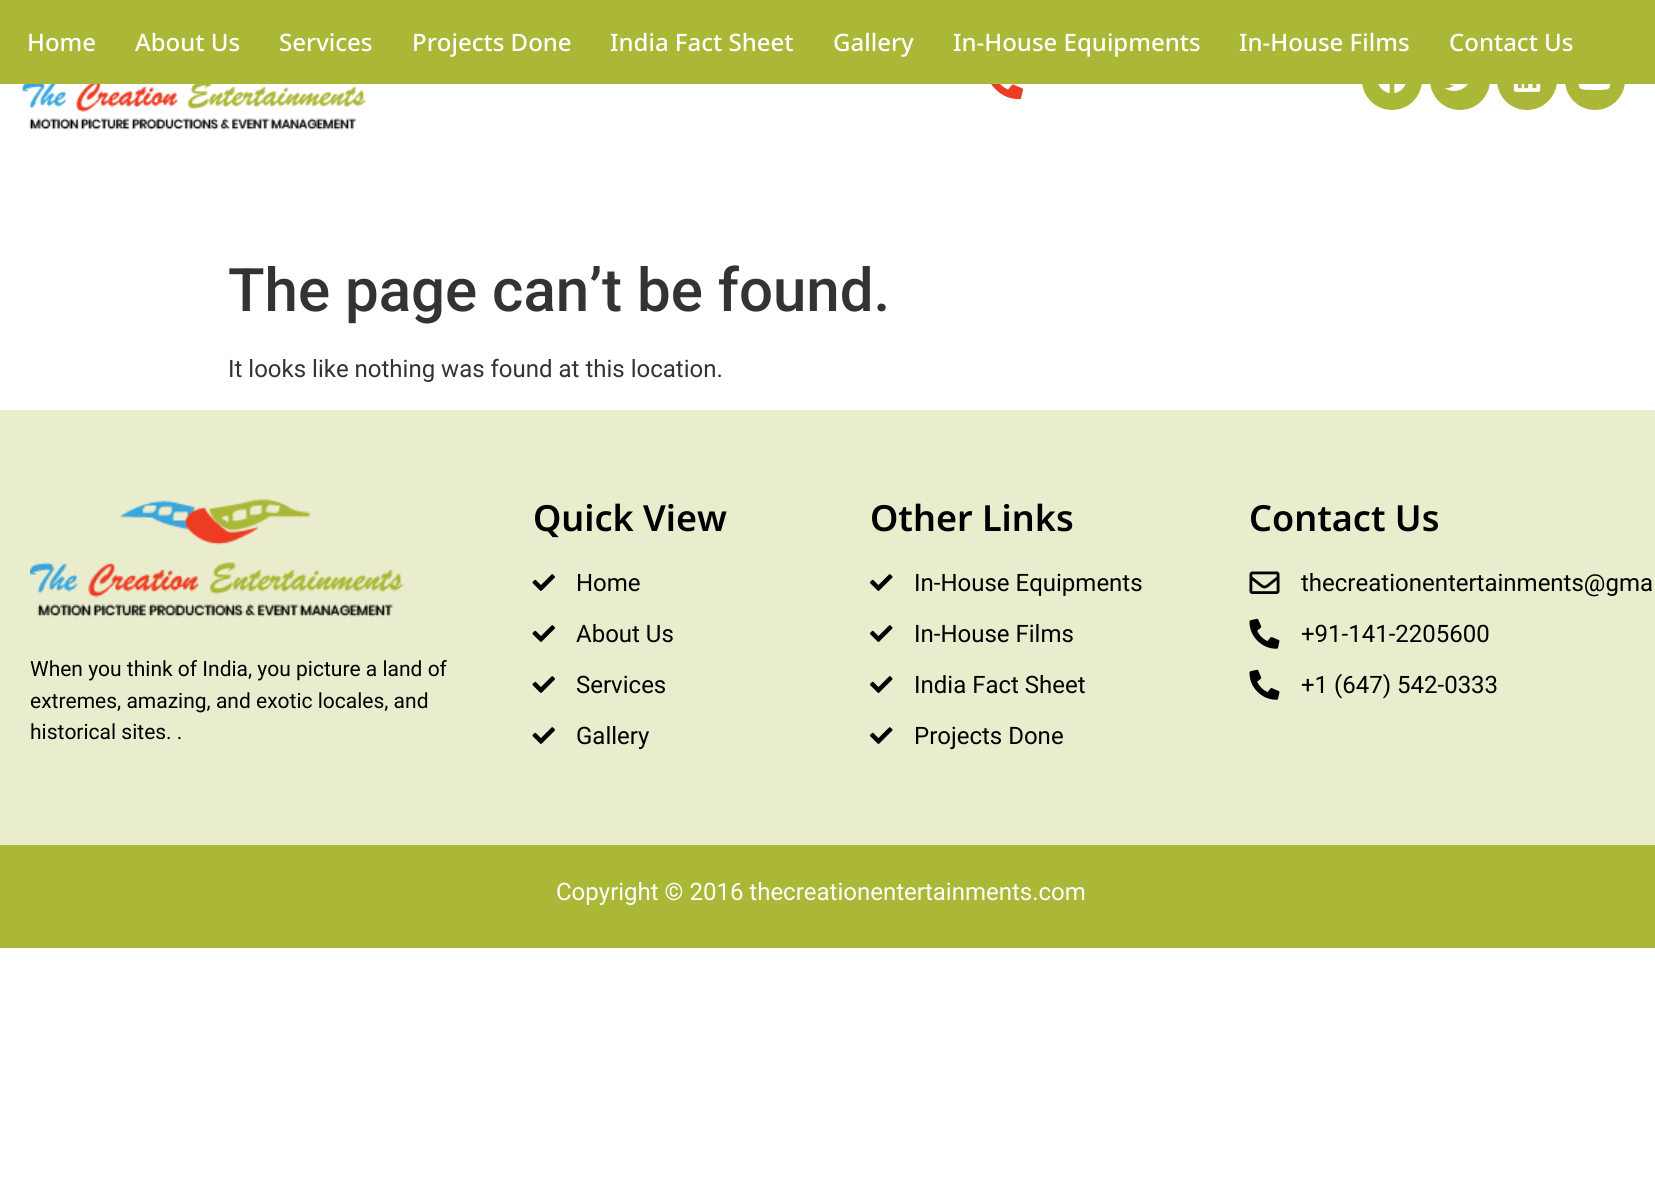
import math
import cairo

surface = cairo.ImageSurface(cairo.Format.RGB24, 1655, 1191)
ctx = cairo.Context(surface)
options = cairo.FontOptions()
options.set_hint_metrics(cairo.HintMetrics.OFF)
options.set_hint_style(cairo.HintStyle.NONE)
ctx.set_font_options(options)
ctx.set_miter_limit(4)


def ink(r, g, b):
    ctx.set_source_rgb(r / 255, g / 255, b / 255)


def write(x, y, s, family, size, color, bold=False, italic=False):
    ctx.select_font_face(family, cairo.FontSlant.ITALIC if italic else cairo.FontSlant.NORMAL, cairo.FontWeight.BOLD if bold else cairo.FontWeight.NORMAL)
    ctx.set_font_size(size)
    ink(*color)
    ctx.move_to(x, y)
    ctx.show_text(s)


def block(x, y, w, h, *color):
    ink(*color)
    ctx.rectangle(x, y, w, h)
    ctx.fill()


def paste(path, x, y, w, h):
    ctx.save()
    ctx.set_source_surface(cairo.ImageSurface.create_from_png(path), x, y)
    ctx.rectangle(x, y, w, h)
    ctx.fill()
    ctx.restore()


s1 = dict(family="Noto Sans Medium", size=24, color=(255, 255, 255))
s2 = dict(family="Roboto Medium", size=60, color=(51, 51, 51))
s3 = dict(family="Roboto", size=24, color=(51, 51, 51))
s4 = dict(family="Roboto", size=21, color=(0, 0, 0))
s5 = dict(family="Noto Sans SemiBold", size=36, color=(0, 0, 0))
s6 = dict(family="Roboto", size=24, color=(0, 0, 0))
s7 = dict(family="Roboto", size=24, color=(255, 255, 255))

ink(255, 255, 255)
ctx.paint()
ink(170, 183, 55)
ctx.arc(1392, 80, 30, 0, 2 * math.pi)
ctx.fill()
ctx.arc(1460, 80, 30, 0, 2 * math.pi)
ctx.fill()
ctx.arc(1527, 80, 30, 0, 2 * math.pi)
ctx.fill()
ctx.arc(1595, 80, 30, 0, 2 * math.pi)
ctx.fill()
block(0, 0, 1655, 84, 170, 183, 55)
write(27, 51, "Home", **s1)
write(135, 51, "About Us", **s1)
write(279, 51, "Services", **s1)
write(412, 51, "Projects Done", **s1)
write(610, 51, "India Fact Sheet", **s1)
write(833, 51, "Gallery", **s1)
write(953, 51, "In-House Equipments", **s1)
write(1239, 51, "In-House Films", **s1)
write(1449, 51, "Contact Us", **s1)
paste("pic1.png", 22, 84, 344, 46)
paste("pic2.png", 991, 84, 32, 16)
paste("pic3.png", 1378, 84, 28, 10)
paste("pic4.png", 1444, 84, 24, 7)
paste("pic5.png", 1513, 84, 28, 8)
paste("pic6.png", 1578, 84, 33, 6)
write(228, 311, "The page can’t be found.", **s2)
write(228, 377, "It looks like nothing was found at this location.", **s3)
block(0, 410, 1655, 435, 234, 237, 205)
paste("pic7.png", 30, 499, 374, 118)
write(30, 676, "When you think of India, you picture a land of", **s4)
write(30, 708, "extremes, amazing, and exotic locales, and", **s4)
write(30, 739, "historical sites. .", **s4)
write(533, 531, "Quick View", **s5)
paste("pic8.png", 532, 574, 23, 17)
write(576, 591, "Home", **s6)
paste("pic8.png", 532, 625, 23, 17)
write(576, 642, "About Us", **s6)
paste("pic8.png", 532, 676, 23, 17)
write(576, 693, "Services", **s6)
paste("pic8.png", 532, 727, 23, 17)
write(576, 744, "Gallery", **s6)
write(870, 531, "Other Links", **s5)
paste("pic9.png", 870, 574, 23, 17)
write(914, 591, "In-House Equipments", **s6)
paste("pic9.png", 870, 625, 23, 17)
write(914, 642, "In-House Films", **s6)
paste("pic9.png", 870, 676, 23, 17)
write(914, 693, "India Fact Sheet", **s6)
paste("pic9.png", 870, 727, 23, 17)
write(914, 744, "Projects Done", **s6)
write(1249, 531, "Contact Us", **s5)
paste("pic10.png", 1249, 571, 31, 23)
write(1301, 591, "thecreationentertainments@gma", **s6)
paste("pic11.png", 1249, 618, 31, 31)
write(1301, 642, "+91-141-2205600", **s6)
paste("pic11.png", 1249, 669, 31, 31)
write(1301, 693, "+1 (647) 542-0333", **s6)
block(0, 845, 1655, 103, 170, 183, 55)
write(556, 900, "Copyright © 2016 thecreationentertainments.com", **s7)
surface.write_to_png("screenshot.png")
